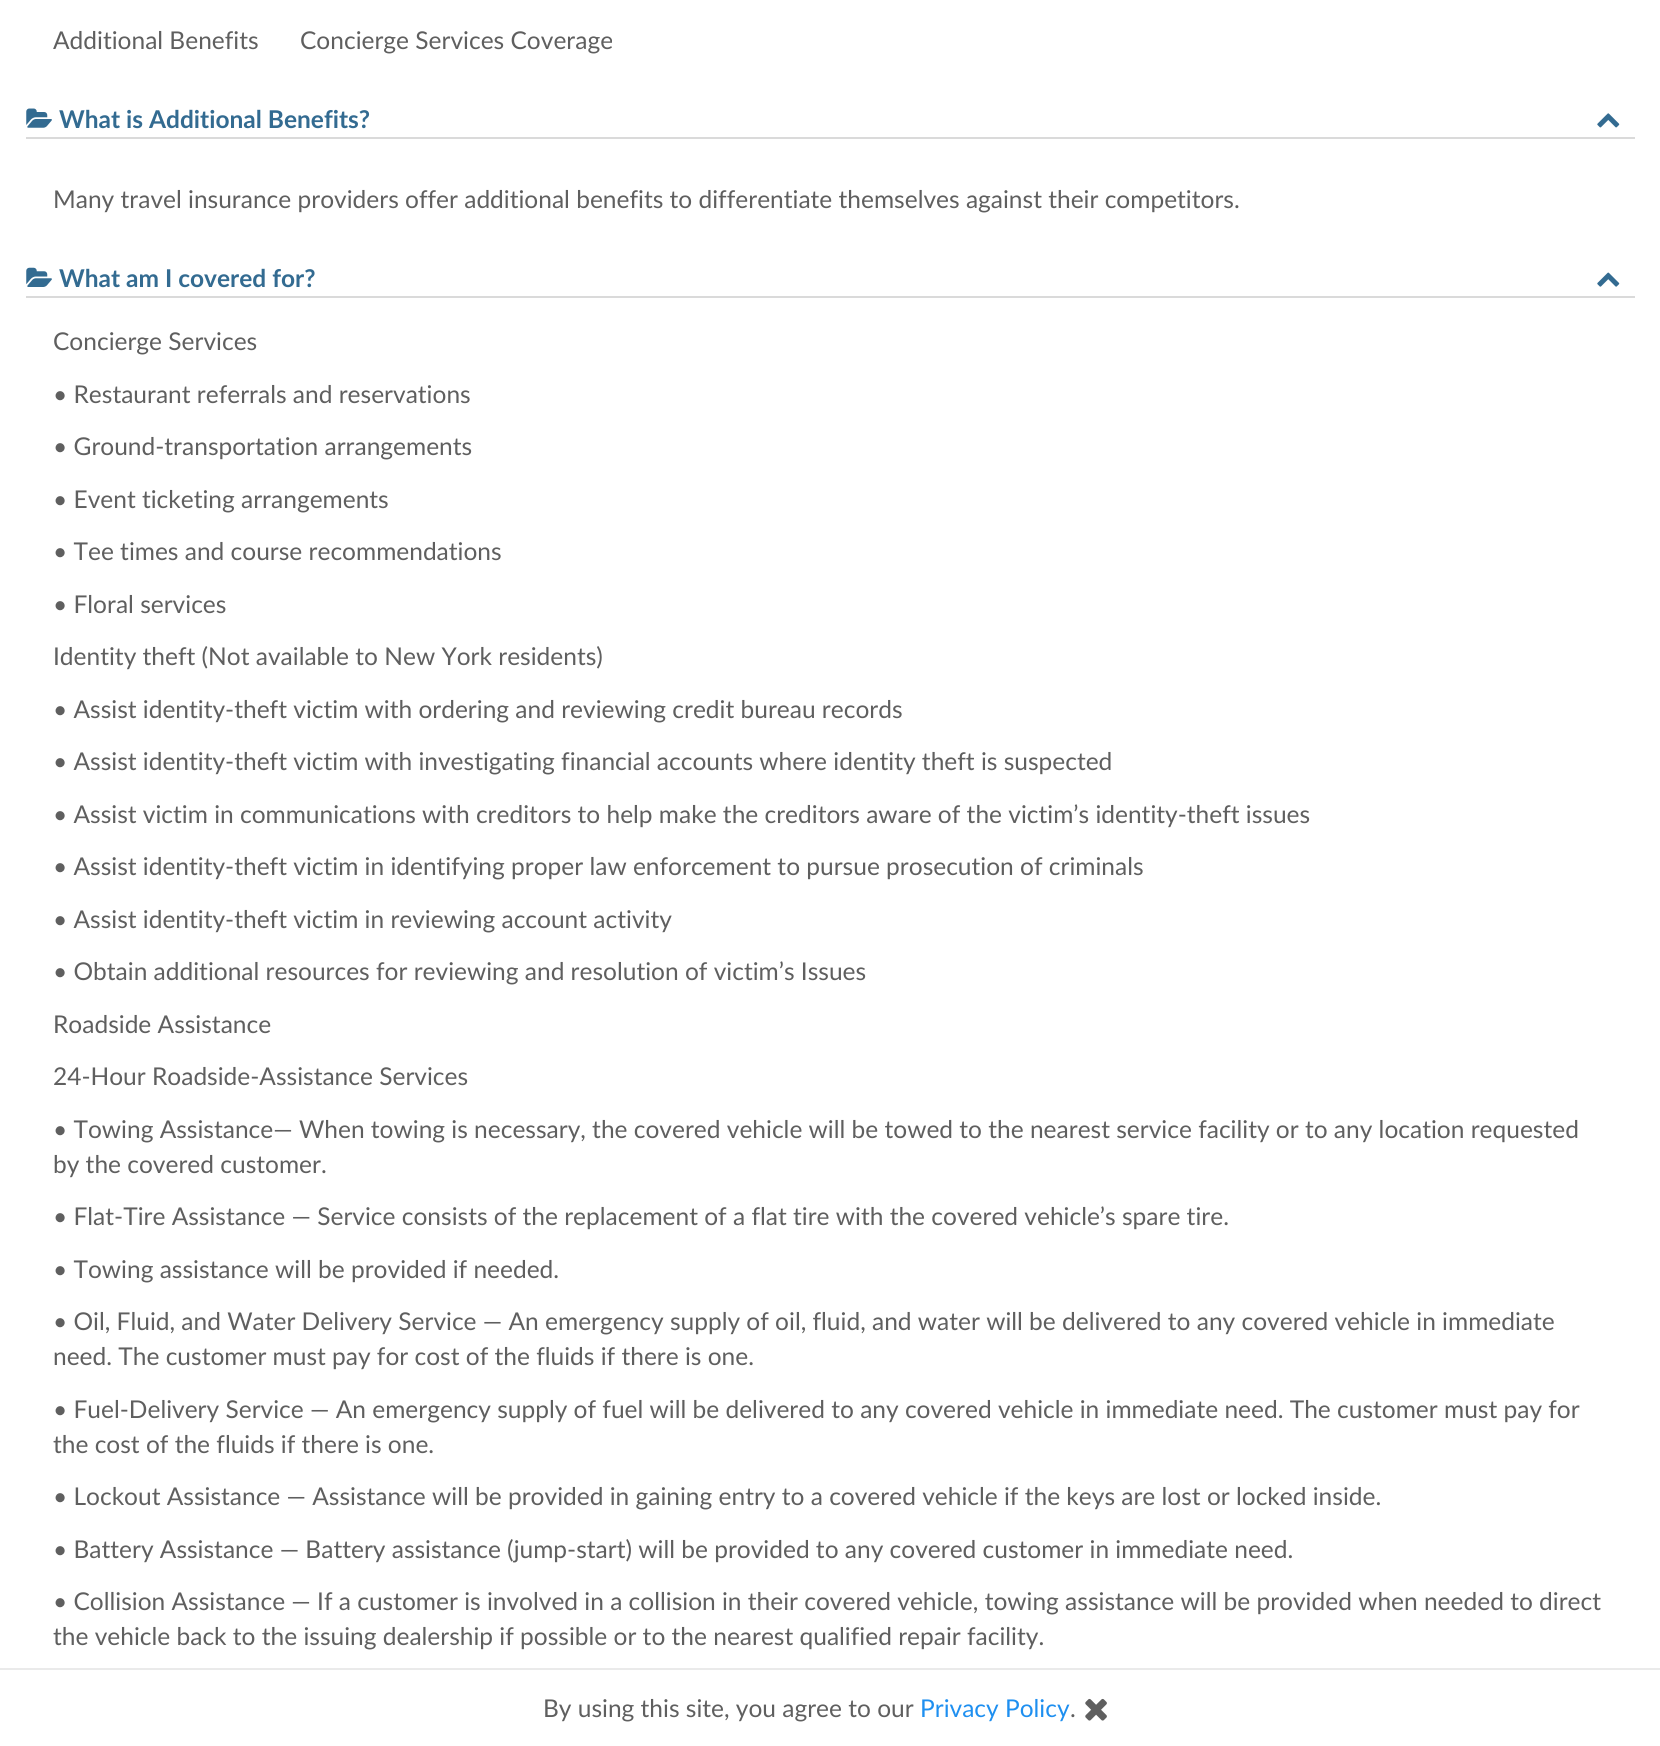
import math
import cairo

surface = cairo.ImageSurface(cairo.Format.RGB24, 1660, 1746)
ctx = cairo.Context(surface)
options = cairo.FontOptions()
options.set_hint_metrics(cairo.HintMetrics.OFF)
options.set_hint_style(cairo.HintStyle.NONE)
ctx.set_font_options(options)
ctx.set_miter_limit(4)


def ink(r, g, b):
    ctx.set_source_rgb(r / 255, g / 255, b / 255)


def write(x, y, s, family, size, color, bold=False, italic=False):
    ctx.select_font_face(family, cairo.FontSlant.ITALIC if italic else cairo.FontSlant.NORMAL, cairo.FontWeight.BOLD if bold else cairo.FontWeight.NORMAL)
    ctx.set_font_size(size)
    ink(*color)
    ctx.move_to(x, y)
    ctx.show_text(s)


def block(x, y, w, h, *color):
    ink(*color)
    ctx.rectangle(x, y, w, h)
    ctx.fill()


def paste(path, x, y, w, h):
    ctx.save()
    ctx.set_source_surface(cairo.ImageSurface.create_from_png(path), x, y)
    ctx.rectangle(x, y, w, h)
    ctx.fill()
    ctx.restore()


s1 = dict(family="Lato", size=24.5, color=(95, 95, 95))
s2 = dict(family="Lato", size=24.5, color=(51, 107, 145), bold=True)
s3 = dict(family="Lato", size=24.5, color=(30, 143, 240))

ink(255, 255, 255)
ctx.paint()
write(53, 49, "Additional Benefits", **s1)
write(300, 49, "Concierge Services Coverage", **s1)
paste("pic1.png", 26, 108, 26, 20)
write(59, 128, "What is Additional Benefits?", **s2)
paste("pic2.png", 1597, 113, 23, 15)
block(26, 137, 1609, 2, 218, 218, 218)
write(53, 208, "Many travel insurance providers offer additional benefits to differentiate themselves against their competitors.", **s1)
paste("pic3.png", 26, 267, 26, 20)
write(59, 287, "What am I covered for?", **s2)
paste("pic4.png", 1597, 272, 23, 15)
block(26, 296, 1609, 2, 218, 218, 218)
write(53, 350, "Concierge Services", **s1)
write(53, 403, "• Restaurant referrals and reservations", **s1)
write(53, 455, "• Ground-transportation arrangements", **s1)
write(53, 508, "• Event ticketing arrangements", **s1)
write(53, 560, "• Tee times and course recommendations", **s1)
write(53, 613, "• Floral services", **s1)
write(53, 665, "Identity theft (Not available to New York residents)", **s1)
write(53, 718, "• Assist identity-theft victim with ordering and reviewing credit bureau records", **s1)
write(53, 770, "• Assist identity-theft victim with investigating financial accounts where identity theft is suspected", **s1)
write(53, 823, "• Assist victim in communications with creditors to help make the creditors aware of the victim’s identity-theft issues", **s1)
write(53, 875, "• Assist identity-theft victim in identifying proper law enforcement to pursue prosecution of criminals", **s1)
write(53, 928, "• Assist identity-theft victim in reviewing account activity", **s1)
write(53, 980, "• Obtain additional resources for reviewing and resolution of victim’s Issues", **s1)
write(53, 1033, "Roadside Assistance", **s1)
write(53, 1085, "24-Hour Roadside-Assistance Services", **s1)
write(53, 1138, "• Towing Assistance— When towing is necessary, the covered vehicle will be towed to the nearest service facility or to any location requested", **s1)
write(53, 1173, "by the covered customer.", **s1)
write(53, 1225, "• Flat-Tire Assistance — Service consists of the replacement of a flat tire with the covered vehicle’s spare tire.", **s1)
write(53, 1278, "• Towing assistance will be provided if needed.", **s1)
write(53, 1330, "• Oil, Fluid, and Water Delivery Service — An emergency supply of oil, fluid, and water will be delivered to any covered vehicle in immediate", **s1)
write(53, 1365, "need. The customer must pay for cost of the fluids if there is one.", **s1)
write(53, 1418, "• Fuel-Delivery Service — An emergency supply of fuel will be delivered to any covered vehicle in immediate need. The customer must pay for", **s1)
write(53, 1453, "the cost of the fluids if there is one.", **s1)
write(53, 1505, "• Lockout Assistance — Assistance will be provided in gaining entry to a covered vehicle if the keys are lost or locked inside.", **s1)
write(53, 1558, "• Battery Assistance — Battery assistance (jump-start) will be provided to any covered customer in immediate need.", **s1)
write(53, 1610, "• Collision Assistance — If a customer is involved in a collision in their covered vehicle, towing assistance will be provided when needed to direct", **s1)
write(53, 1645, "the vehicle back to the issuing dealership if possible or to the nearest qualified repair facility.", **s1)
block(0, 1668, 1660, 2, 234, 234, 234)
write(543, 1717, "By using this site, you agree to our", **s1)
write(920, 1717, "Privacy Policy", **s3)
write(1070, 1717, ".", **s1)
paste("pic5.png", 1085, 1698, 22, 23)
surface.write_to_png("screenshot.png")
